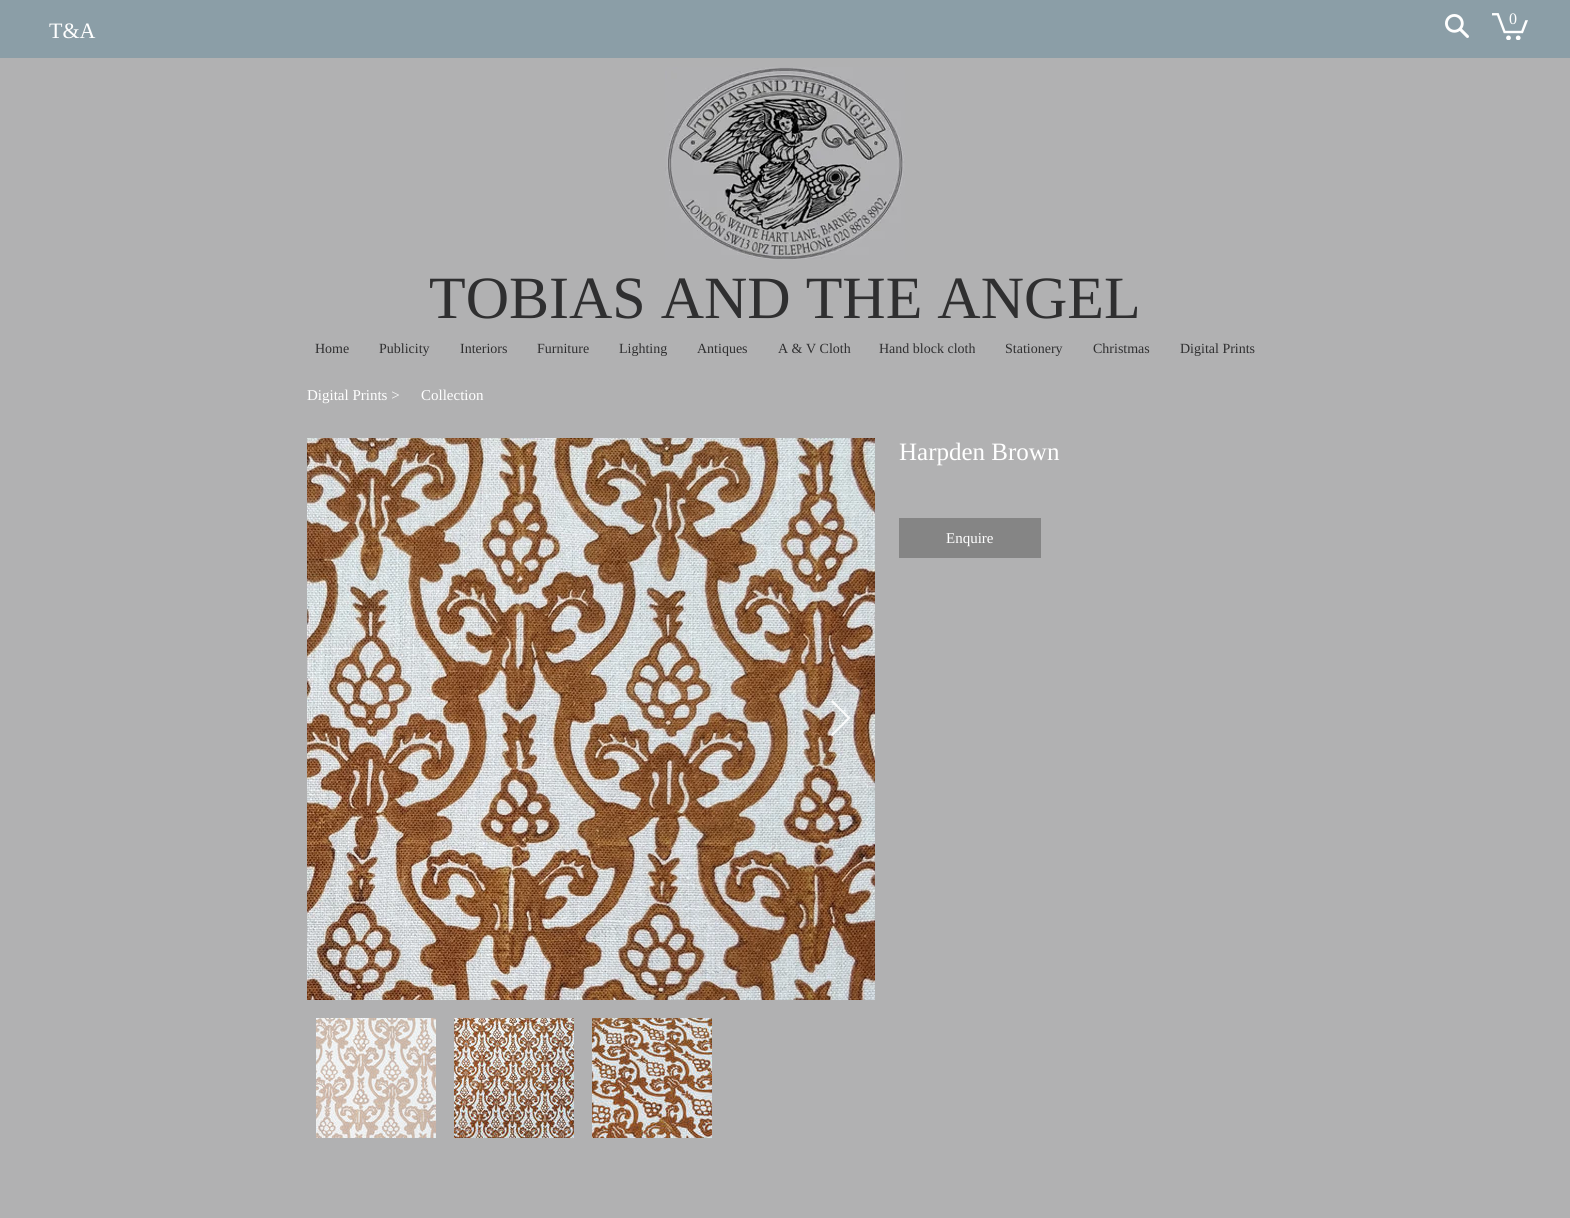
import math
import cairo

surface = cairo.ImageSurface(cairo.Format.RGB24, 1570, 1218)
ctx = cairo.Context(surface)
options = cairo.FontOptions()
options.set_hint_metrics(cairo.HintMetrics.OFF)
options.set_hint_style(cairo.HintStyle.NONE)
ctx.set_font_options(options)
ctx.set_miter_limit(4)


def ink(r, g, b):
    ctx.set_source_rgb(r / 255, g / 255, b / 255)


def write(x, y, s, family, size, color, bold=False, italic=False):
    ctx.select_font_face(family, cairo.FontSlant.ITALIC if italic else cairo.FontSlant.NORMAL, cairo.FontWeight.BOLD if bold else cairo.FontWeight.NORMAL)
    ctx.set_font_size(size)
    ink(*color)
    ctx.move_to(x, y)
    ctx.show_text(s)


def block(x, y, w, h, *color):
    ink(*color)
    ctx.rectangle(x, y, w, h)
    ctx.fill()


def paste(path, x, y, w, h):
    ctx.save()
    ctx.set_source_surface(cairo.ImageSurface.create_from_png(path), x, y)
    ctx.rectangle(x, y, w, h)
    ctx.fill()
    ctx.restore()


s1 = dict(family="Liberation Serif", size=16, color=(255, 255, 255))
s2 = dict(family="Liberation Serif", size=22, color=(255, 255, 255))
s3 = dict(family="Liberation Serif", size=60, color=(47, 47, 48))
s4 = dict(family="Liberation Serif", size=14, color=(47, 47, 48))
s5 = dict(family="Liberation Serif", size=15, color=(255, 255, 255))
s6 = dict(family="Liberation Serif", size=25, color=(255, 255, 255))

ink(177, 177, 178)
ctx.paint()
block(0, 0, 1570, 58, 139, 158, 167)
paste("pic1.png", 1445, 14, 24, 24)
paste("pic2.png", 1492, 13, 36, 27)
write(1509, 24, "0", **s1)
write(49, 38, "T&A", **s2)
paste("pic3.png", 665, 67, 240, 193)
write(429, 318, "TOBIAS AND THE ANGEL", **s3)
write(315, 353, "Home", **s4)
write(379, 353, "Publicity", **s4)
write(460, 353, "Interiors", **s4)
write(537, 353, "Furniture", **s4)
write(619, 353, "Lighting", **s4)
write(697, 353, "Antiques", **s4)
write(778, 353, "A & V Cloth", **s4)
write(879, 353, "Hand block cloth", **s4)
write(1005, 353, "Stationery", **s4)
write(1093, 353, "Christmas", **s4)
write(1180, 353, "Digital Prints", **s4)
write(307, 400, "Digital Prints >", **s5)
write(421, 400, "Collection", **s5)
paste("pic4.png", 307, 438, 568, 562)
ctx.set_source_rgba(1, 1, 1, 0.9)
ctx.new_path()
ctx.move_to(831, 701.5)
ctx.line_to(832.5, 700)
ctx.line_to(850.5, 718)
ctx.line_to(832.5, 736)
ctx.line_to(831, 734.5)
ctx.line_to(847.5, 718)
ctx.close_path()
ctx.fill()
paste("pic5.png", 316, 1018, 120, 120)
paste("pic6.png", 454, 1018, 120, 120)
paste("pic7.png", 592, 1018, 120, 120)
write(899, 460, "Harpden Brown", **s6)
block(899, 518, 142, 40, 133, 133, 133)
write(946, 543, "Enquire", **s5)
surface.write_to_png("screenshot.png")
